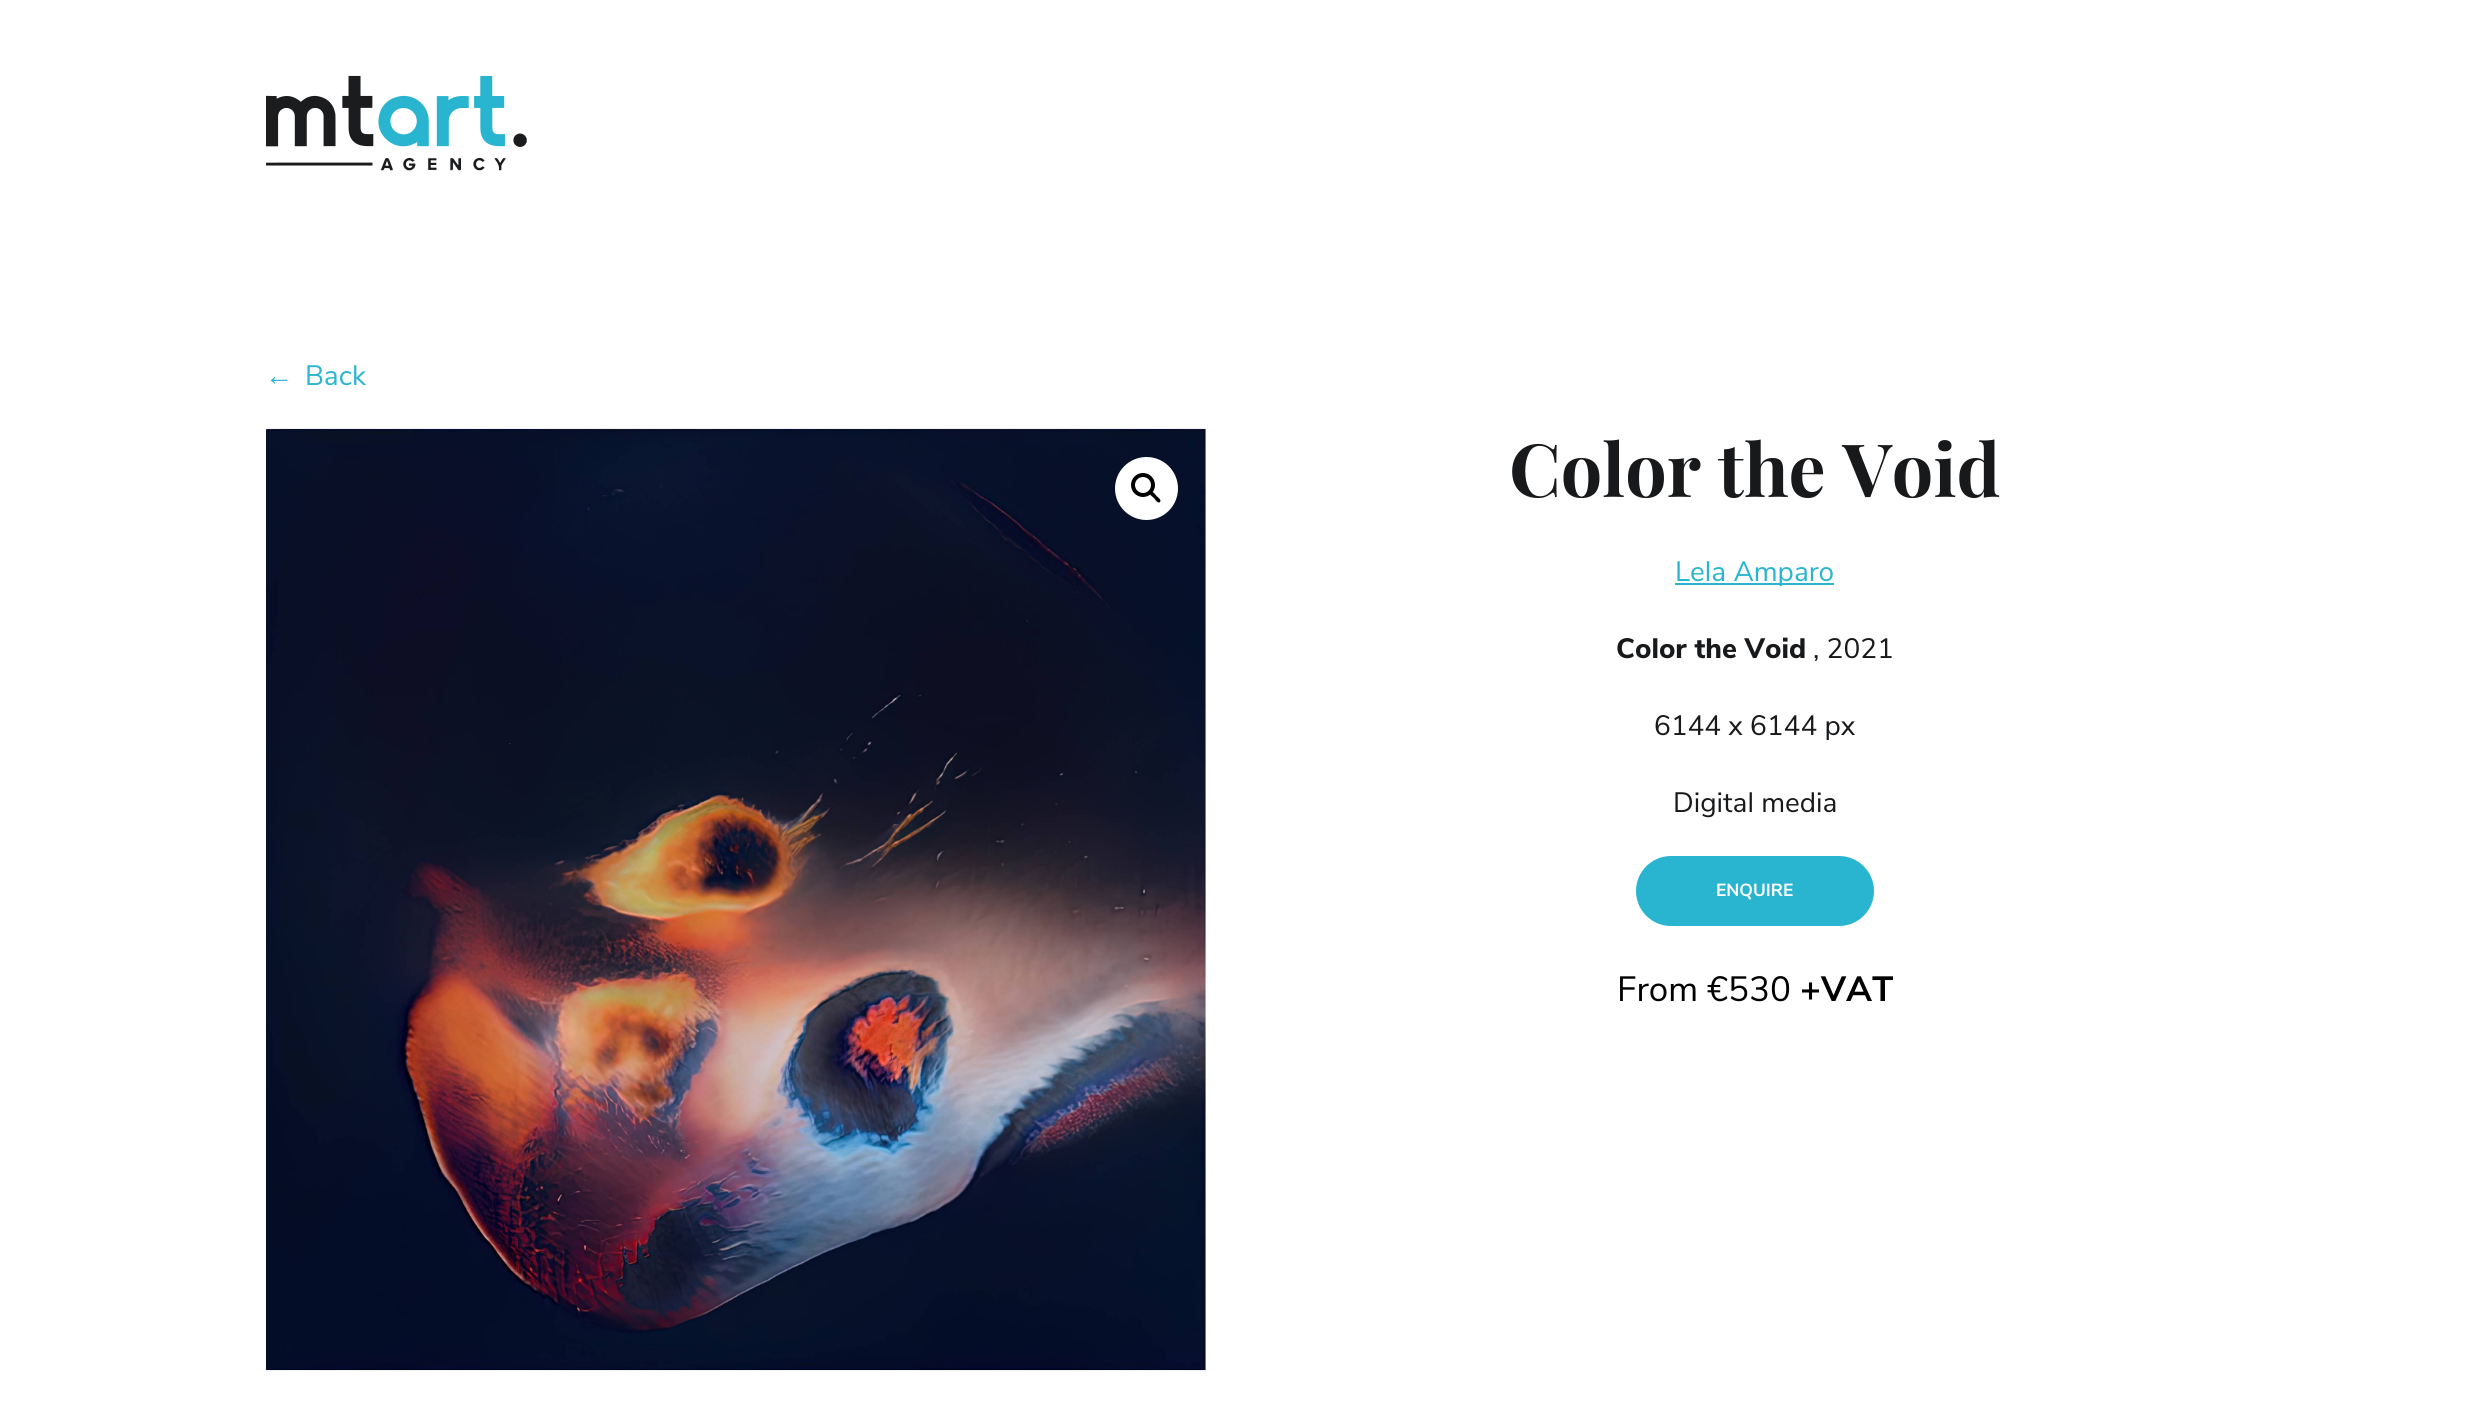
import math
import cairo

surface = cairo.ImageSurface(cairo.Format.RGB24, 2490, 1419)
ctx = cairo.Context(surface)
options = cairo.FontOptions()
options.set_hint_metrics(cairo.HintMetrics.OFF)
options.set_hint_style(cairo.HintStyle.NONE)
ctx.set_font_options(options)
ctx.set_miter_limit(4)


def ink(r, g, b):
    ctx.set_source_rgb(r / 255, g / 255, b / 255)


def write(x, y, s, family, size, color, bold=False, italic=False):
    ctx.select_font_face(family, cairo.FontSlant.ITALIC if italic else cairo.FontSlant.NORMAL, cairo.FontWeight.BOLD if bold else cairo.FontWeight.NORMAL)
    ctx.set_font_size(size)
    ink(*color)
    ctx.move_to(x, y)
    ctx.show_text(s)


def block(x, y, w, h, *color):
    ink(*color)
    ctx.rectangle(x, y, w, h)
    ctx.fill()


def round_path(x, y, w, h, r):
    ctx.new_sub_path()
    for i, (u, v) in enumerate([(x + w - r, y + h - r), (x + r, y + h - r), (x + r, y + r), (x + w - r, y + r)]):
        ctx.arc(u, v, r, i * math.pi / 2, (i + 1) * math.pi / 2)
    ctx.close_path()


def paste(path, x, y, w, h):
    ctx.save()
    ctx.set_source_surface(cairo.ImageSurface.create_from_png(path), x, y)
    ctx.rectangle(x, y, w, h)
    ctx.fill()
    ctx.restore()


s1 = dict(family="Liberation Sans", size=28, color=(41, 181, 207))
s2 = dict(family="Nunito Sans", size=28, color=(41, 181, 207))
s3 = dict(family="Playfair Display", size=73.5, color=(24, 25, 27), bold=True)
s4 = dict(family="Nunito Sans ExtraBold", size=28, color=(24, 25, 27))
s5 = dict(family="Nunito Sans", size=28, color=(24, 25, 27))
s6 = dict(family="Nunito Sans", size=17.5, color=(255, 255, 255), bold=True)
s7 = dict(family="Nunito Sans", size=35, color=(0, 0, 0))
s8 = dict(family="Nunito Sans", size=35, color=(0, 0, 0), bold=True)

ink(255, 255, 255)
ctx.paint()
paste("pic1.png", 266, 75, 261, 96)
write(265, 385, "←", **s1)
write(305, 385, "Back", **s2)
paste("pic2.png", 266, 428, 940, 943)
ink(255, 255, 255)
ctx.arc(1146.5, 488.5, 31.5, 0, 2 * math.pi)
ctx.fill()
ctx.arc(1143, 485, 10, 0, 2 * math.pi)
ink(0, 0, 0)
ctx.set_line_width(4)
ctx.stroke()
ctx.new_path()
ctx.move_to(1150, 492)
ctx.curve_to(1152, 490, 1155.5, 494.5, 1156.5, 496)
ctx.curve_to(1157.5, 497, 1162, 500, 1160, 502)
ctx.curve_to(1158, 504, 1155, 499.5, 1154, 498)
ctx.curve_to(1153, 497, 1148, 494, 1150, 492)
ctx.close_path()
ctx.fill()
write(1509, 497, "Color the Void", **s3)
block(1675, 583, 159, 2, 41, 181, 207)
write(1675, 581, "Lela Amparo", **s2)
write(1616, 658, "Color the Void", **s4)
write(1813, 658, ", 2021", **s5)
write(1654, 735, "6144 x 6144 px", **s5)
write(1673, 812, "Digital media", **s5)
ink(41, 181, 207)
round_path(1637, 857, 236, 68, 34)
ctx.fill_preserve()
ctx.set_line_width(2)
ctx.stroke()
write(1716, 896, "ENQUIRE", **s6)
write(1617, 1001, "From €530", **s7)
write(1800, 1001, "+VAT", **s8)
surface.write_to_png("screenshot.png")
